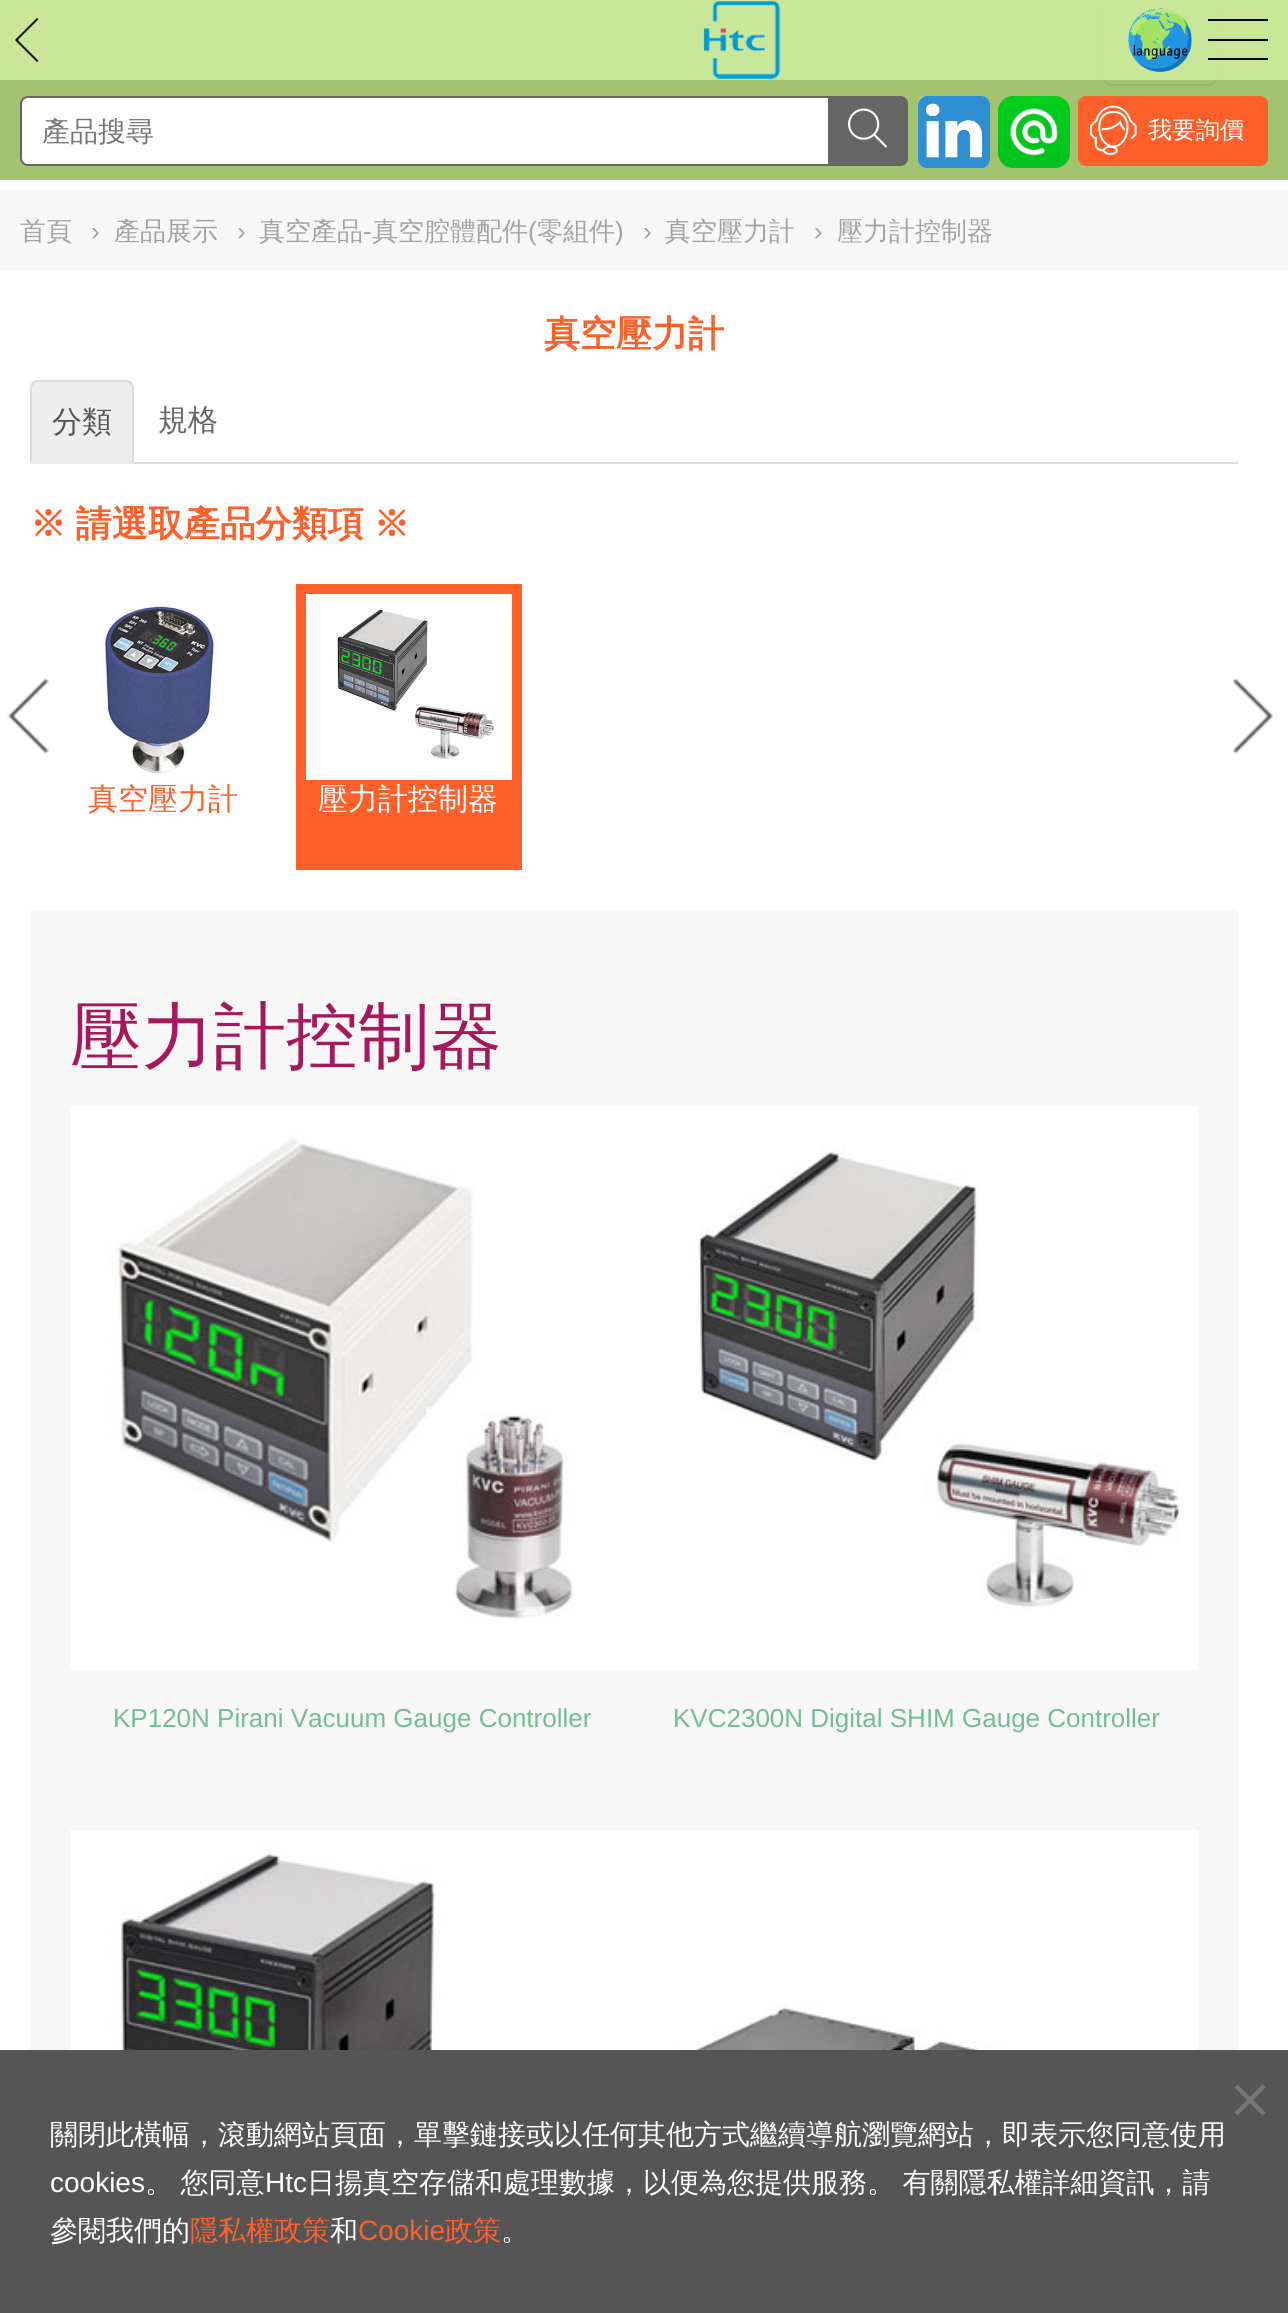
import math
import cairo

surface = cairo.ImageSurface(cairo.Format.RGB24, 1288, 2313)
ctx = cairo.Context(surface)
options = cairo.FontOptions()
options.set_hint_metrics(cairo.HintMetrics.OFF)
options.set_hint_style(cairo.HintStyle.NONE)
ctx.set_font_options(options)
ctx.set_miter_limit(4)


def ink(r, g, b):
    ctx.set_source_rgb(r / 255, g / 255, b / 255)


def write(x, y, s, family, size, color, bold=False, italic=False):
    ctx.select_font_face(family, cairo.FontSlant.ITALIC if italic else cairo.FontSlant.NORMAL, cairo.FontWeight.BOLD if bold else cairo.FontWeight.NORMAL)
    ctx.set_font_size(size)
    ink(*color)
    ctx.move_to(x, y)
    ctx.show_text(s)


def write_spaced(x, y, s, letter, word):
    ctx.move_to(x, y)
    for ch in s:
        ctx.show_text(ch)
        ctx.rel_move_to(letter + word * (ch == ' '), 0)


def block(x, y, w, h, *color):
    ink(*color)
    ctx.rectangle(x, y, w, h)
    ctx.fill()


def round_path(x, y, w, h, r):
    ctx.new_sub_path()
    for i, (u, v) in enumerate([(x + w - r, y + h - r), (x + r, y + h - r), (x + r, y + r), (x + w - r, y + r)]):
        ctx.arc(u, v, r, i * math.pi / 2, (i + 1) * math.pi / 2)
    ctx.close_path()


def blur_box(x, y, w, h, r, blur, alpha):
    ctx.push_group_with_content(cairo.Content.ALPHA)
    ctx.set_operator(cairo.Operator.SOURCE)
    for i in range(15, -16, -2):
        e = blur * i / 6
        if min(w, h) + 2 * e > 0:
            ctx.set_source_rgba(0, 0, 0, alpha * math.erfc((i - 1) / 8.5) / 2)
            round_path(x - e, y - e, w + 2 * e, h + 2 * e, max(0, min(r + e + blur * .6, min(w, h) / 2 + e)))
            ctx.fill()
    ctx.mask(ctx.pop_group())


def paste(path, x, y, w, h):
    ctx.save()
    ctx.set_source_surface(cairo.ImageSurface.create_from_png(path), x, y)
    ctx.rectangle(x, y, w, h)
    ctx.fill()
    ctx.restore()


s1 = dict(family="WenQuanYi Zen Hei Medium", size=28, color=(117, 117, 117))
s2 = dict(family="WenQuanYi Zen Hei Medium", size=24, color=(255, 255, 255))
s3 = dict(family="WenQuanYi Zen Hei Medium", size=26, color=(163, 163, 163))
s4 = dict(family="Liberation Sans", size=26, color=(163, 163, 163))
s5 = dict(family="WenQuanYi Zen Hei", size=36, color=(255, 95, 41), bold=True)
s6 = dict(family="WenQuanYi Zen Hei Medium", size=30, color=(85, 85, 85))
s7 = dict(family="WenQuanYi Zen Hei Medium", size=30, color=(102, 102, 102))
s8 = dict(family="WenQuanYi Zen Hei Medium", size=30, color=(255, 95, 41))
s9 = dict(family="WenQuanYi Zen Hei Medium", size=30, color=(255, 255, 255))
s10 = dict(family="WenQuanYi Zen Hei Medium", size=72, color=(167, 24, 90))
s11 = dict(family="Liberation Sans", size=26, color=(114, 189, 149))
s12 = dict(family="WenQuanYi Zen Hei Medium", size=28, color=(255, 255, 255))
s13 = dict(family="Liberation Sans", size=28, color=(255, 255, 255))
s14 = dict(family="WenQuanYi Zen Hei Medium", size=28, color=(255, 95, 41))
s15 = dict(family="Liberation Sans", size=28, color=(255, 95, 41))

ink(255, 255, 255)
ctx.paint()
block(0, 0, 1288, 80, 201, 231, 152)
paste("pic1.png", 15, 17, 24, 46)
paste("pic2.png", 703, 1, 78, 79)
block(0, 80, 1288, 100, 162, 195, 111)
ctx.save()
ctx.set_fill_rule(cairo.FillRule.EVEN_ODD)
ctx.new_path()
ctx.move_to(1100, 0)
ctx.line_to(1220, 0)
ctx.line_to(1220, 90)
ctx.line_to(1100, 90)
ctx.close_path()
ctx.move_to(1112, -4)
ctx.line_to(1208, -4)
ctx.curve_to(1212.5, -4, 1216, -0.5, 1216, 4)
ctx.line_to(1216, 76)
ctx.curve_to(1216, 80.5, 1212.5, 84, 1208, 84)
ctx.line_to(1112, 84)
ctx.curve_to(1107.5, 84, 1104, 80.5, 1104, 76)
ctx.line_to(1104, 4)
ctx.curve_to(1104, -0.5, 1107.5, -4, 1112, -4)
ctx.close_path()
ctx.clip()
ink(0, 0, 0)
blur_box(1104, -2, 112, 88, 8, 1, 0.07)
ctx.restore()
ink(209, 234, 167)
ctx.new_path()
ctx.move_to(1112, -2)
ctx.line_to(1208, -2)
ctx.curve_to(1212, -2, 1216, 2, 1216, 6)
ctx.curve_to(1216, -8, 1202, -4, 1192, -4)
ctx.line_to(1128, -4)
ctx.curve_to(1118, -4, 1104, -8, 1104, 6)
ctx.curve_to(1104, 2, 1108, -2, 1112, -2)
ctx.close_path()
ctx.fill()
paste("pic3.png", 1128, 8, 64, 64)
ink(0, 0, 0)
ctx.new_path()
ctx.move_to(1208, 21)
ctx.line_to(1268, 21)
ctx.line_to(1268, 19)
ctx.line_to(1208, 19)
ctx.close_path()
ctx.move_to(1208, 41)
ctx.line_to(1268, 41)
ctx.line_to(1268, 39)
ctx.line_to(1208, 39)
ctx.close_path()
ctx.move_to(1208, 60)
ctx.line_to(1268, 60)
ctx.line_to(1268, 58)
ctx.line_to(1208, 58)
ctx.close_path()
ctx.fill()
ink(255, 255, 255)
round_path(21, 97, 886, 68, 7)
ctx.fill_preserve()
ink(102, 102, 102)
ctx.stroke()
write(42, 141, "產品搜尋", **s1)
ink(102, 102, 102)
ctx.new_path()
ctx.move_to(828, 96)
ctx.line_to(900, 96)
ctx.curve_to(904.5, 96, 908, 99.5, 908, 104)
ctx.line_to(908, 158)
ctx.curve_to(908, 162.5, 904.5, 166, 900, 166)
ctx.line_to(828, 166)
ctx.close_path()
ctx.fill()
paste("pic4.png", 848, 108, 40, 40)
ink(255, 255, 255)
round_path(918, 96, 70, 70, 8)
ctx.fill()
paste("pic5.png", 918, 96, 72, 72)
paste("pic6.png", 998, 96, 72, 72)
ink(255, 95, 41)
round_path(1078, 96, 190, 70, 8)
ctx.fill()
paste("pic7.png", 1090, 105, 47, 50)
write(1148, 138, "我要詢價", **s2)
block(0, 190, 1288, 80, 247, 247, 247)
write(20, 240, "首頁", **s3)
write(91, 240, "›", **s4)
write(114, 240, "產品展示", **s3)
write(237, 240, "›", **s4)
write(259, 240, "真空產品", **s3)
write(363, 240, "-", **s4)
write(372, 240, "真空腔體配件", **s3)
write(528, 240, "(", **s4)
write(537, 240, "零組件", **s3)
write(615, 240, ")", **s4)
write(643, 240, "›", **s4)
write(665, 240, "真空壓力計", **s3)
write(814, 240, "›", **s4)
write(837, 240, "壓力計控制器", **s3)
write(544, 346, "真空壓力計", **s5)
block(134, 462, 1104, 2, 221, 221, 221)
ink(238, 238, 238)
ctx.new_path()
ctx.move_to(38, 380)
ctx.line_to(126, 380)
ctx.curve_to(130.5, 380, 134, 383.5, 134, 388)
ctx.line_to(134, 464)
ctx.line_to(30, 464)
ctx.line_to(30, 388)
ctx.curve_to(30, 383.5, 33.5, 380, 38, 380)
ctx.close_path()
ctx.fill()
ink(221, 221, 221)
ctx.new_path()
ctx.move_to(38, 380)
ctx.curve_to(36, 380, 34, 381, 32, 382)
ctx.line_to(34, 384)
ctx.line_to(37, 382)
ctx.line_to(127, 382)
ctx.line_to(130, 384)
ctx.line_to(132, 382)
ctx.curve_to(130, 381, 128, 380, 126, 380)
ctx.close_path()
ctx.fill()
ctx.new_path()
ctx.move_to(134, 464)
ctx.line_to(134, 388)
ctx.curve_to(134, 386, 133, 384, 132, 382)
ctx.line_to(130, 384)
ctx.line_to(132, 387)
ctx.line_to(132, 462)
ctx.close_path()
ctx.fill()
ctx.new_path()
ctx.move_to(30, 464)
ctx.line_to(32, 462)
ctx.line_to(32, 387)
ctx.line_to(34, 384)
ctx.line_to(32, 382)
ctx.curve_to(31, 384, 30, 386, 30, 388)
ctx.close_path()
ctx.fill()
write(52, 432, "分類", **s6)
write(158, 430, "規格", **s7)
ctx.select_font_face("WenQuanYi Zen Hei", cairo.FontSlant.NORMAL, cairo.FontWeight.BOLD)
ctx.set_font_size(36)
ink(255, 95, 41)
write_spaced(30, 536, "※ 請選取產品分類項 ※", 0, -1)
paste("pic8.png", 7, 678, 42, 76)
paste("pic9.png", 1233, 678, 40, 76)
paste("pic10.png", 105, 603, 110, 171)
write(88, 809, "真空壓力計", **s8)
ctx.rectangle(301, 589, 216, 276)
ctx.set_line_width(10)
ctx.stroke()
paste("pic11.png", 337, 608, 157, 151)
block(306, 780, 206, 80, 255, 95, 41)
write(318, 809, "壓力計控制器", **s9)
block(30, 910, 1208, 1140, 247, 247, 247)
write(70, 1061, "壓力計控制器", **s10)
paste("pic12.png", 70, 1106, 564, 564)
write(113, 1727, "KP120N Pirani Vacuum Gauge Controller", **s11)
paste("pic13.png", 634, 1106, 564, 564)
write(673, 1727, "KVC2300N Digital SHIM Gauge Controller", **s11)
paste("pic14.png", 70, 1830, 564, 220)
paste("pic15.png", 634, 1830, 564, 220)
block(0, 2050, 1288, 263, 85, 85, 85)
ink(119, 119, 119)
ctx.new_path()
ctx.move_to(1262.5, 2084.5)
ctx.line_to(1265.5, 2087.5)
ctx.line_to(1237.5, 2115.5)
ctx.line_to(1234.5, 2112.5)
ctx.close_path()
ctx.fill()
ctx.new_path()
ctx.move_to(1234.5, 2087.5)
ctx.line_to(1237.5, 2084.5)
ctx.line_to(1265.5, 2112.5)
ctx.line_to(1262.5, 2115.5)
ctx.close_path()
ctx.fill()
write(50, 2144, "關閉此橫幅，滾動網站頁面，單擊鏈接或以任何其他方式繼續導航瀏覽網站，即表示您同意使用", **s12)
write(50, 2192, "cookies", **s13)
ctx.select_font_face("WenQuanYi Zen Hei Medium")
write_spaced(145, 2192, "。 您同意", 0, -1)
write(265, 2192, "Htc", **s13)
ctx.select_font_face("WenQuanYi Zen Hei Medium")
write_spaced(307, 2192, "日揚真空存儲和處理數據，以便為您提供服務。 有關隱私權詳細資訊，請", 0, -1)
write(50, 2240, "參閱我們的", **s12)
write(190, 2240, "隱私權政策", **s14)
write(330, 2240, "和", **s12)
write(358, 2240, "Cookie", **s15)
write(445, 2240, "政策", **s14)
write(501, 2240, "。", **s12)
surface.write_to_png("screenshot.png")
